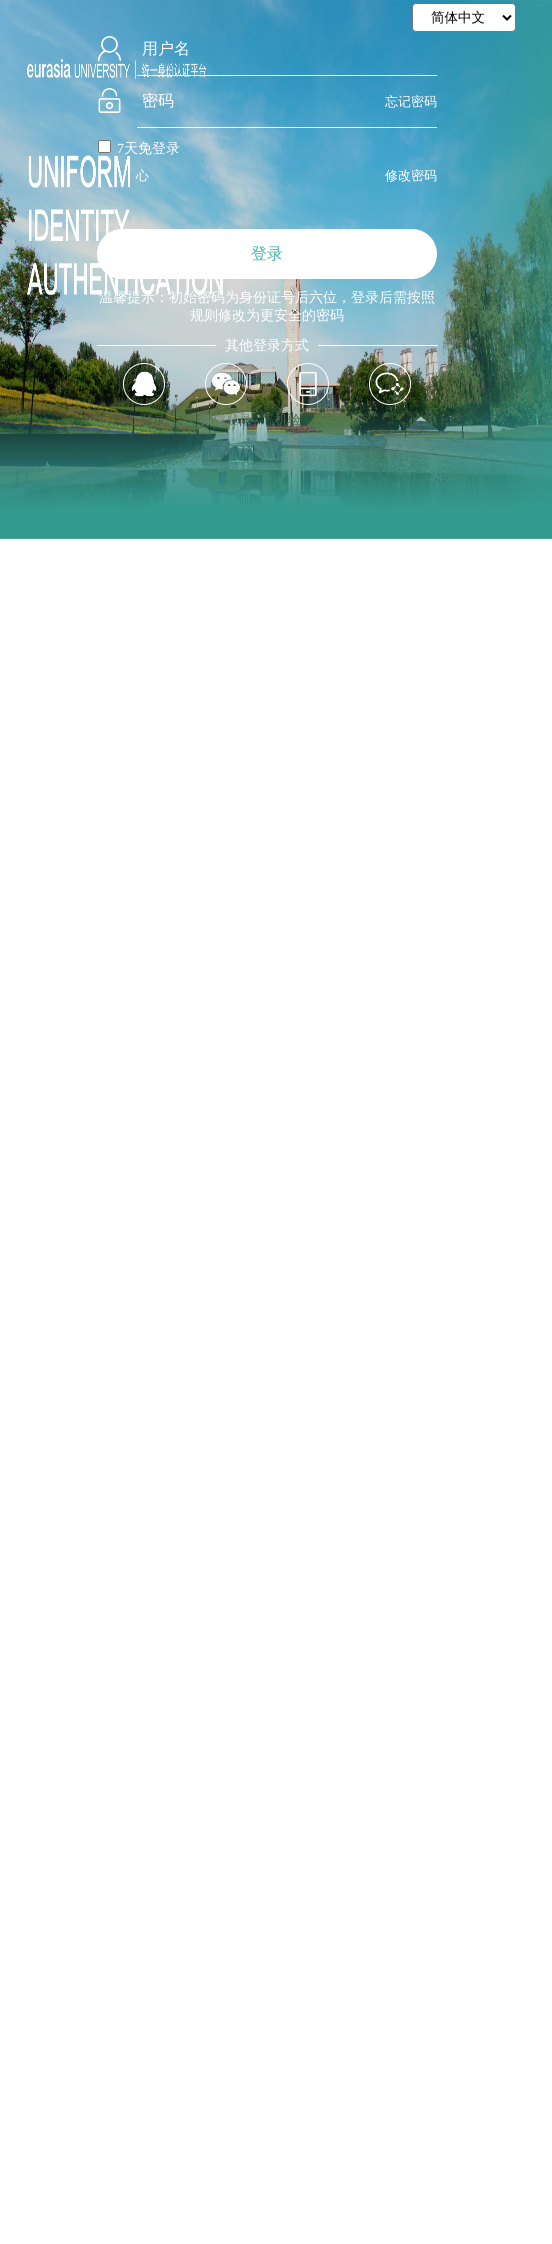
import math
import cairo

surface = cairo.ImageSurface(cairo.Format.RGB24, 552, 2244)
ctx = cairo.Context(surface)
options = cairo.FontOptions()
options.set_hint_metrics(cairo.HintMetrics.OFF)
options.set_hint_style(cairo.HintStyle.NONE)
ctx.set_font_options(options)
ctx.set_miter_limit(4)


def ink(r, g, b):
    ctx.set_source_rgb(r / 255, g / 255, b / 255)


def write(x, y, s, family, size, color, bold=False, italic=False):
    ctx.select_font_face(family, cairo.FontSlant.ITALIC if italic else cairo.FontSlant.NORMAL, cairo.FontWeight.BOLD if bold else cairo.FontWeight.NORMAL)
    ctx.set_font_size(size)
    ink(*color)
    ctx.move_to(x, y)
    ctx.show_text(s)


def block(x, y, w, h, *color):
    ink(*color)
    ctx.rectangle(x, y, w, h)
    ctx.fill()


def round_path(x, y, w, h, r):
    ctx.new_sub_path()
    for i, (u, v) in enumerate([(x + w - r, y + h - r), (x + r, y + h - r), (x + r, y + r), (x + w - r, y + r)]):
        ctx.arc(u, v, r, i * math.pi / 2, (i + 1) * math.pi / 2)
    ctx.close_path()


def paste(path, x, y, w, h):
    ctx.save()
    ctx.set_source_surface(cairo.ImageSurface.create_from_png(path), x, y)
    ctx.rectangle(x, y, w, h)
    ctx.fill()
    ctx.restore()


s1 = dict(family="WenQuanYi Zen Hei Medium", size=13.5, color=(0, 0, 0))
s2 = dict(family="WenQuanYi Zen Hei Medium", size=16, color=(255, 255, 255))
s3 = dict(family="WenQuanYi Zen Hei Medium", size=13, color=(255, 255, 255))
s4 = dict(family="Liberation Serif", size=14, color=(255, 255, 255))
s5 = dict(family="WenQuanYi Zen Hei Medium", size=14, color=(255, 255, 255))
s6 = dict(family="WenQuanYi Zen Hei Medium", size=16, color=(56, 184, 172))
s7 = dict(family="WenQuanYi Zen Hei Medium", size=13, color=(69, 92, 60))
s8 = dict(family="WenQuanYi Zen Hei Medium", size=13, color=(107, 133, 111))
s9 = dict(family="WenQuanYi Zen Hei Medium", size=13, color=(74, 105, 76))

ink(255, 255, 255)
ctx.paint()
paste("pic1.png", 0, 0, 552, 539)
ink(255, 255, 255)
round_path(412.5, 3.5, 103, 28, 3.5)
ctx.fill_preserve()
ink(121, 121, 121)
ctx.set_line_width(1)
ctx.stroke()
ctx.new_path()
ctx.move_to(503, 15.5)
ctx.line_to(507, 19.5)
ctx.line_to(511, 15.5)
ink(0, 0, 0)
ctx.set_line_width(2)
ctx.stroke()
write(431, 22, "简体中文", **s1)
paste("pic2.png", 97, 36, 25, 25)
block(137, 75, 300, 1, 255, 255, 255)
write(142, 54, "用户名", **s2)
paste("pic3.png", 98, 88, 23, 25)
block(137, 127, 300, 1, 255, 255, 255)
write(142, 106, "密码", **s2)
write(385, 106, "忘记密码", **s3)
round_path(98.5, 140.5, 12, 12, 1.5)
ctx.fill_preserve()
ink(118, 118, 118)
ctx.set_line_width(1)
ctx.stroke()
write(117, 153, "7", **s4)
write(124, 153, "天免登录", **s5)
write(136, 180, "心", **s3)
write(385, 180, "修改密码", **s3)
round_path(97, 229, 340, 50, 25)
ctx.fill()
write(251, 259, "登录", **s6)
write(99, 302, "温馨提示：初始密码为身份证号后六位，登录后需按照", **s5)
write(190, 320, "规则修改为更安全的密码", **s5)
block(97, 345, 119, 1, 255, 255, 255)
write(225, 350, "其他登录方式", **s5)
block(318, 345, 120, 1, 255, 255, 255)
ctx.new_path()
ctx.arc(390, 384, 20.5, 0, 2 * math.pi)
ctx.stroke()
paste("pic4.png", 375, 372, 29, 23)
ctx.arc(144, 384, 20.5, 0, 2 * math.pi)
ctx.stroke()
paste("pic5.png", 131, 371, 26, 26)
write(140, 424, "登录", **s7)
ctx.new_path()
ctx.arc(226, 384, 20.5, 0, 2 * math.pi)
ink(255, 255, 255)
ctx.stroke()
paste("pic6.png", 212, 372, 28, 24)
write(200, 424, "微信登录", **s8)
ctx.new_path()
ctx.arc(308, 384, 20.5, 0, 2 * math.pi)
ink(255, 255, 255)
ctx.stroke()
paste("pic7.png", 299, 371, 18, 26)
write(275, 424, "机验", **s9)
surface.write_to_png("screenshot.png")
